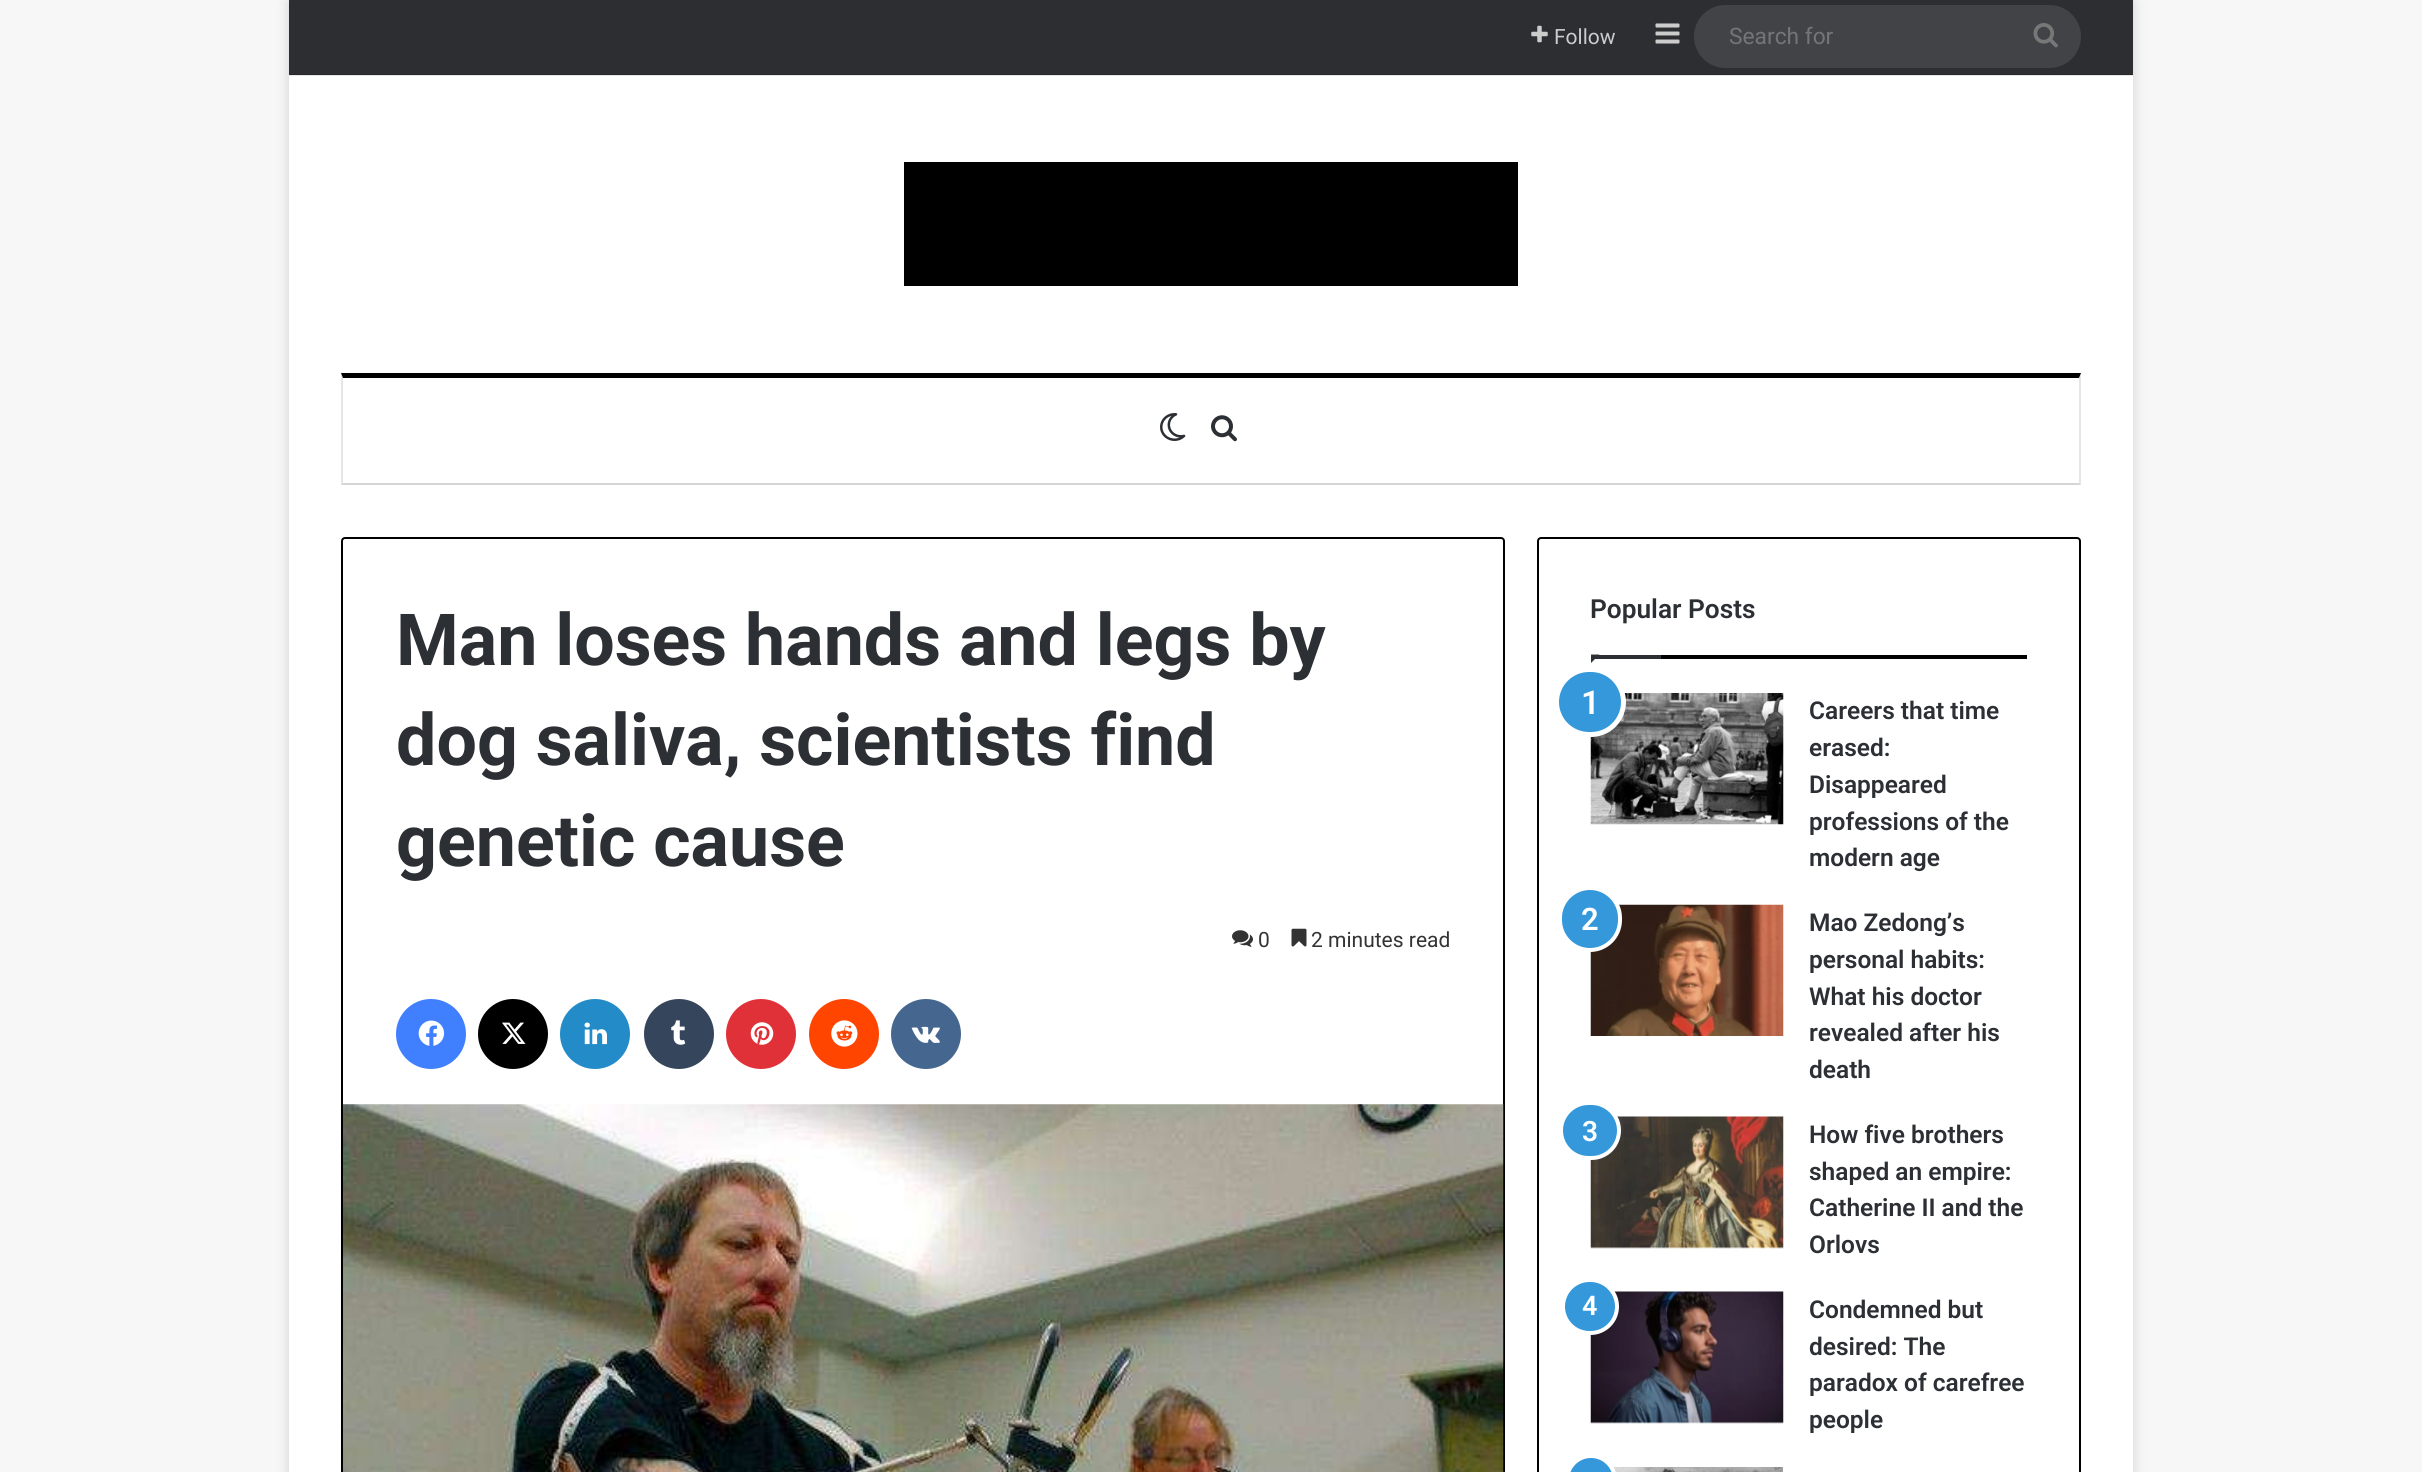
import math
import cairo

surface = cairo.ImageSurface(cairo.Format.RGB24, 2422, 1472)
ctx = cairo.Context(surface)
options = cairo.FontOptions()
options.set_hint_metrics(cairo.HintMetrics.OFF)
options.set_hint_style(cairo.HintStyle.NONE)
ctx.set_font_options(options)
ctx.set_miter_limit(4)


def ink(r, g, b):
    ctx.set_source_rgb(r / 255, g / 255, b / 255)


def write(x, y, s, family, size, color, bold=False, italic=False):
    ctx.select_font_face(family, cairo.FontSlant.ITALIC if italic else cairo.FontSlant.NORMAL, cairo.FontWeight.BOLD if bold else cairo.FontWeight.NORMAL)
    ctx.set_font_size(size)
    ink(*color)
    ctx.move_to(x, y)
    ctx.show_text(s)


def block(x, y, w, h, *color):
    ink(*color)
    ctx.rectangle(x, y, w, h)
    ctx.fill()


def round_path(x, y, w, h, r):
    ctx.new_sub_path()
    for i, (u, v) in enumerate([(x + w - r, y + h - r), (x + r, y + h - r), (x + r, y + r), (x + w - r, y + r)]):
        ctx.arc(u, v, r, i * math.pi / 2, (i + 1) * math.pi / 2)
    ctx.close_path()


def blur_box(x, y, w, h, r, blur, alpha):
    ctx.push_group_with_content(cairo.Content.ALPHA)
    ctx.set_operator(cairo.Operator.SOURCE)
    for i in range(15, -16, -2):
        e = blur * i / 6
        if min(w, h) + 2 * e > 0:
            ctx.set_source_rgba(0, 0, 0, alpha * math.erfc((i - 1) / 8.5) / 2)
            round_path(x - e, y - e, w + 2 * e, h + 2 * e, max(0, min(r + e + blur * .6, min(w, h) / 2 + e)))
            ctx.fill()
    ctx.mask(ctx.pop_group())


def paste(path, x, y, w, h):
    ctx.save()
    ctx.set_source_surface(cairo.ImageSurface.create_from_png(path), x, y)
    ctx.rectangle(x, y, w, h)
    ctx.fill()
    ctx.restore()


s1 = dict(family="Roboto", size=21, color=(204, 204, 204))
s2 = dict(family="Roboto", size=22.75, color=(117, 117, 117))
s3 = dict(family="Roboto", size=71.75, color=(44, 47, 52), bold=True)
s4 = dict(family="Roboto", size=21, color=(51, 51, 51))
s5 = dict(family="Roboto SemiBold", size=26.25, color=(44, 47, 52))
s6 = dict(family="Roboto SemiBold", size=33, color=(255, 255, 255))
s7 = dict(family="Roboto SemiBold", size=24.5, color=(44, 47, 52))
s8 = dict(family="Roboto SemiBold", size=31, color=(255, 255, 255))
s9 = dict(family="Roboto SemiBold", size=28, color=(255, 255, 255))
s10 = dict(family="Roboto SemiBold", size=27, color=(255, 255, 255))

ink(247, 247, 247)
ctx.paint()
ink(171, 171, 171)
blur_box(289, 2, 1844, 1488, 0, 6, 0.5)
block(289, 76, 1844, 1396, 255, 255, 255)
block(289, 75, 1844, 1, 230, 230, 230)
block(289, 0, 1844, 74, 44, 46, 50)
block(289, 74, 1844, 1, 40, 41, 45)
paste("pic1.png", 1531, 25, 17, 18)
write(1554, 44, "Follow", **s1)
paste("pic2.png", 1655, 23, 25, 21)
ink(65, 67, 71)
round_path(1694, 5, 387, 63, 31.5)
ctx.fill()
write(1729, 44, "Search for", **s2)
paste("pic3.png", 2033, 23, 25, 25)
block(904, 162, 614, 124, 0, 0, 0)
ctx.new_path()
ctx.move_to(341, 373)
ctx.line_to(2081, 373)
ctx.line_to(2079, 378)
ctx.line_to(343, 378)
ctx.close_path()
ctx.fill()
ctx.set_source_rgba(0, 0, 0, 0.1)
ctx.new_path()
ctx.move_to(2081, 373)
ctx.line_to(2081, 485)
ctx.line_to(2079, 483)
ctx.line_to(2079, 378)
ctx.close_path()
ctx.fill()
ink(213, 213, 213)
ctx.new_path()
ctx.move_to(2081, 485)
ctx.line_to(341, 485)
ctx.line_to(343, 483)
ctx.line_to(2079, 483)
ctx.close_path()
ctx.fill()
ctx.set_source_rgba(0, 0, 0, 0.1)
ctx.new_path()
ctx.move_to(341, 485)
ctx.line_to(341, 373)
ctx.line_to(343, 378)
ctx.line_to(343, 483)
ctx.close_path()
ctx.fill()
paste("pic4.png", 1160, 413, 26, 28)
paste("pic5.png", 1211, 415, 26, 27)
round_path(342, 538, 1162, 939, 3)
ink(0, 0, 0)
ctx.stroke()
write(396, 665, "Man loses hands and legs by", **s3)
write(396, 765, "dog saliva, scientists find", **s3)
write(396, 866, "genetic cause", **s3)
paste("pic6.png", 1232, 930, 21, 17)
write(1258, 947, "0", **s4)
paste("pic7.png", 1291, 928, 16, 19)
write(1311, 947, "2 minutes read", **s4)
ink(64, 128, 255)
ctx.new_path()
ctx.arc(431, 1034, 35, 0, 2 * math.pi)
ctx.fill()
paste("pic8.png", 418, 1020, 27, 26)
ink(0, 0, 0)
ctx.arc(513, 1034, 35, 0, 2 * math.pi)
ctx.fill()
paste("pic9.png", 502, 1022, 24, 22)
ink(35, 140, 200)
ctx.arc(595, 1034, 35, 0, 2 * math.pi)
ctx.fill()
paste("pic10.png", 584, 1022, 23, 23)
ink(53, 70, 92)
ctx.arc(679, 1034, 35, 0, 2 * math.pi)
ctx.fill()
paste("pic11.png", 671, 1020, 15, 25)
ink(225, 49, 56)
ctx.arc(761, 1034, 35, 0, 2 * math.pi)
ctx.fill()
paste("pic12.png", 750, 1022, 24, 23)
ink(255, 69, 0)
ctx.arc(844, 1034, 35, 0, 2 * math.pi)
ctx.fill()
paste("pic13.png", 831, 1020, 27, 27)
ink(69, 102, 142)
ctx.arc(926, 1034, 35, 0, 2 * math.pi)
ctx.fill()
paste("pic14.png", 911, 1026, 29, 17)
paste("pic15.png", 343, 1104, 1161, 368)
round_path(1538, 538, 542, 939, 3)
ink(0, 0, 0)
ctx.stroke()
block(1661, 655, 366, 4, 0, 0, 0)
write(1590, 618, "Popular Posts", **s5)
ctx.new_path()
ctx.move_to(1591, 654.5)
ctx.line_to(1599.5, 654.5)
ctx.line_to(1591, 663)
ctx.close_path()
ctx.fill()
block(1591, 655, 70, 4, 44, 47, 52)
paste("pic16.png", 1590, 693, 194, 132)
ink(52, 152, 219)
round_path(1556.5, 669.5, 67, 65, 32.5)
ctx.fill_preserve()
ink(255, 255, 255)
ctx.set_line_width(5)
ctx.stroke()
write(1581, 714, "1", **s6)
write(1809, 719, "Careers that time", **s7)
write(1809, 756, "erased:", **s7)
write(1809, 793, "Disappeared", **s7)
write(1809, 830, "professions of the", **s7)
write(1809, 866, "modern age", **s7)
paste("pic17.png", 1590, 904, 194, 132)
ink(52, 152, 219)
round_path(1560, 888, 60, 62, 30)
ctx.fill_preserve()
ink(255, 255, 255)
ctx.set_line_width(4)
ctx.stroke()
write(1581, 930, "2", **s8)
write(1809, 931, "Mao Zedong’s", **s7)
write(1809, 968, "personal habits:", **s7)
write(1809, 1005, "What his doctor", **s7)
write(1809, 1041, "revealed after his", **s7)
write(1809, 1078, "death", **s7)
paste("pic18.png", 1590, 1116, 194, 133)
ink(52, 152, 219)
round_path(1561, 1103, 58, 55, 27.5)
ctx.fill_preserve()
ink(255, 255, 255)
ctx.stroke()
write(1582, 1141, "3", **s9)
write(1809, 1143, "How five brothers", **s7)
write(1809, 1180, "shaped an empire:", **s7)
write(1809, 1216, "Catherine II and the", **s7)
write(1809, 1253, "Orlovs", **s7)
paste("pic19.png", 1590, 1291, 194, 133)
ink(52, 152, 219)
round_path(1563, 1280, 54, 53, 26.5)
ctx.fill_preserve()
ink(255, 255, 255)
ctx.stroke()
write(1582, 1315, "4", **s10)
write(1809, 1318, "Condemned but", **s7)
write(1809, 1355, "desired: The", **s7)
write(1809, 1391, "paradox of carefree", **s7)
write(1809, 1428, "people", **s7)
paste("pic20.png", 1613, 1467, 170, 5)
ink(52, 152, 219)
round_path(1567, 1456, 48, 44, 24)
ctx.fill_preserve()
ink(255, 255, 255)
ctx.stroke()
surface.write_to_png("screenshot.png")
